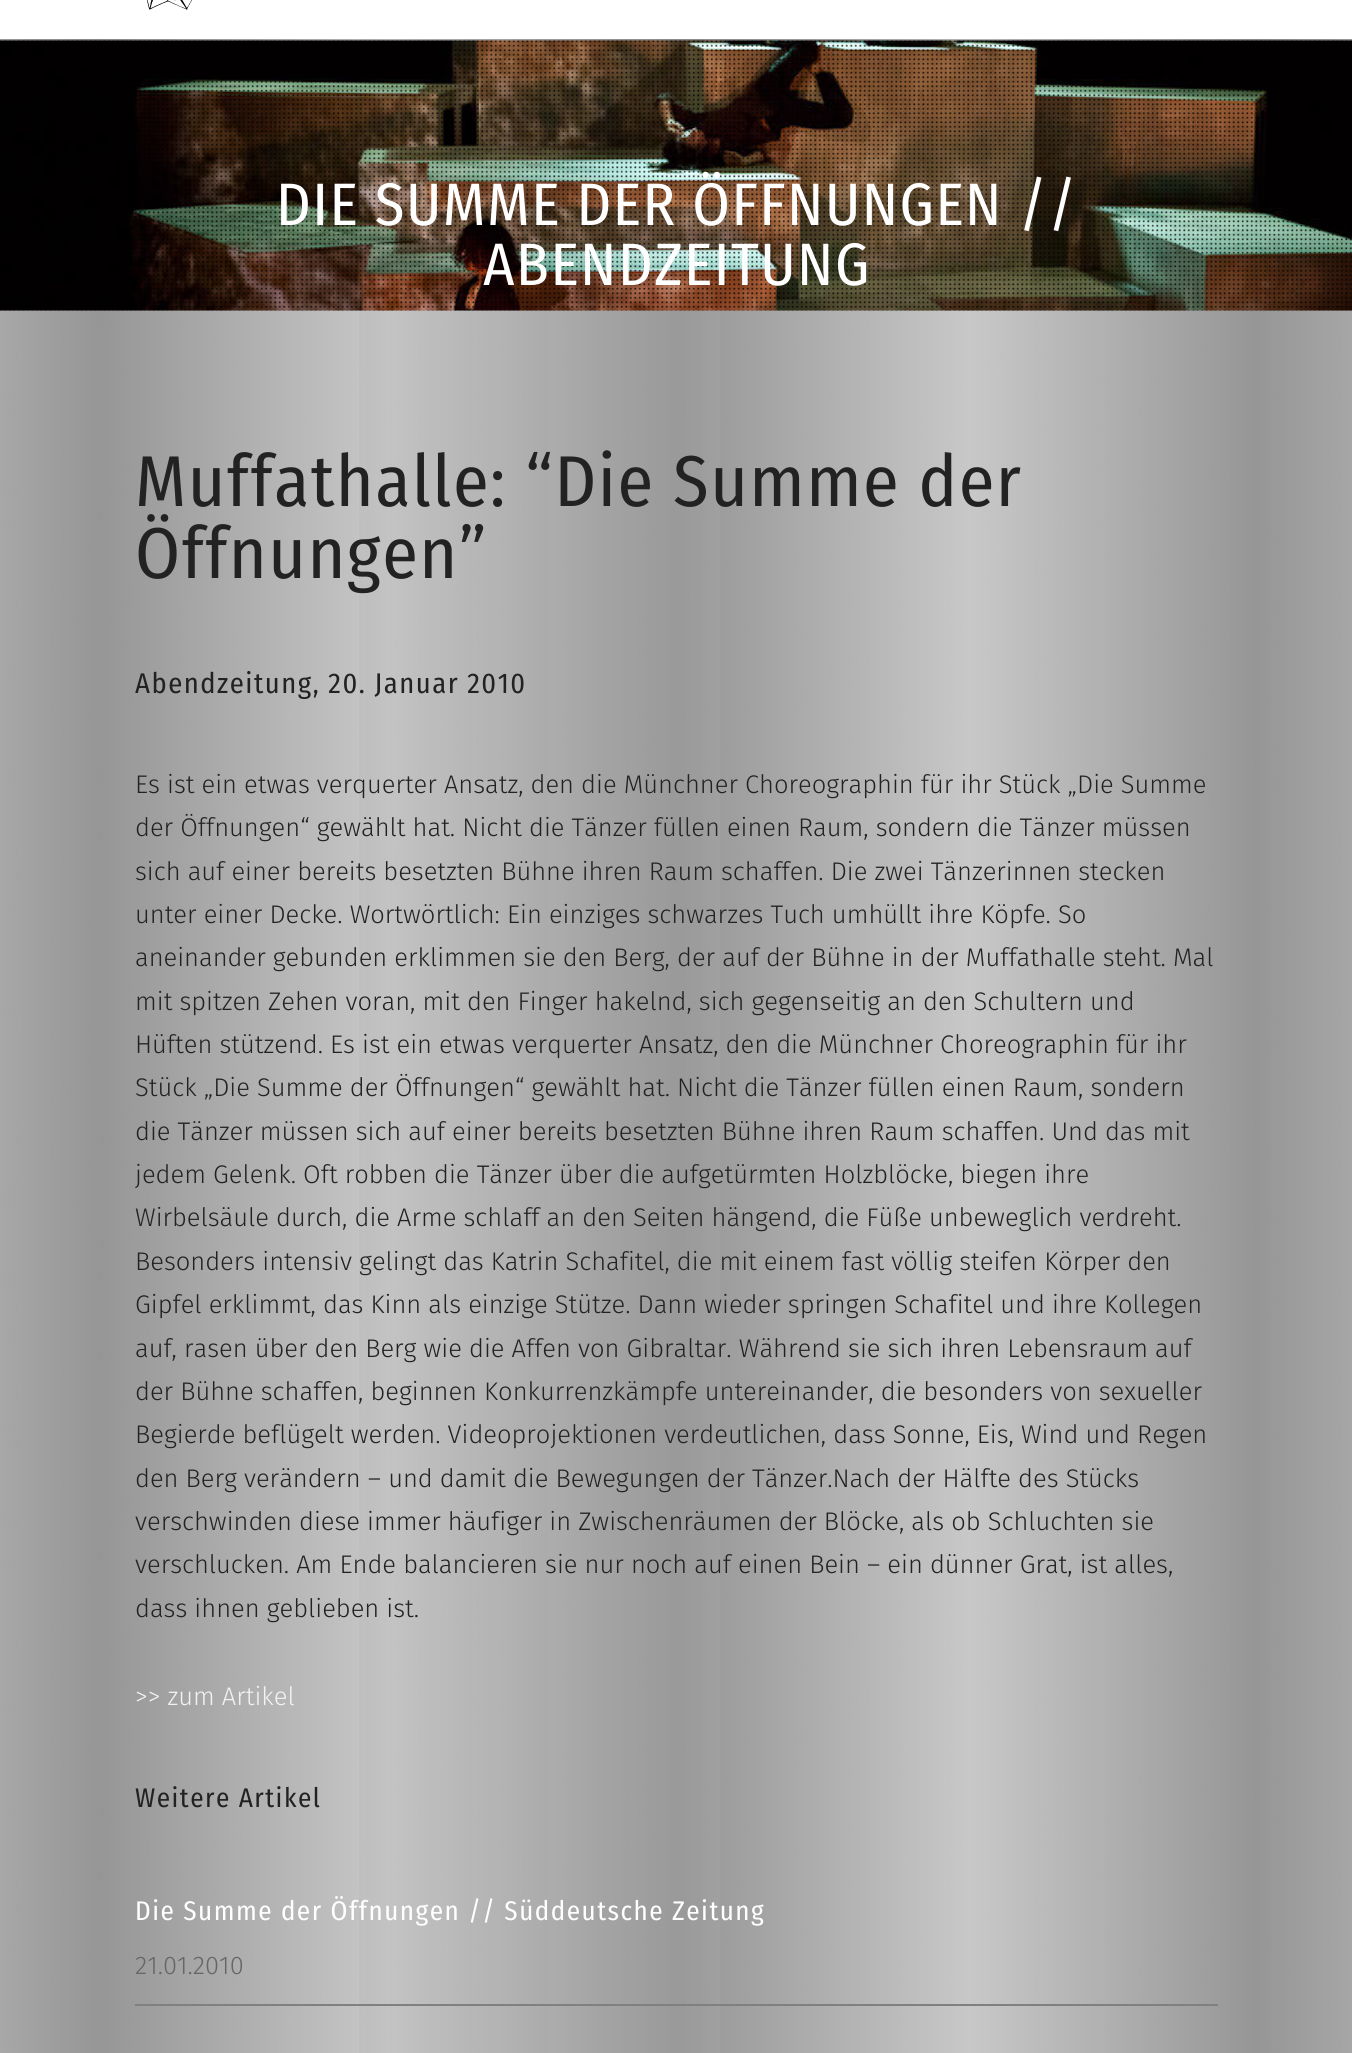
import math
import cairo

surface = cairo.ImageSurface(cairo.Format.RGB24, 1352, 2053)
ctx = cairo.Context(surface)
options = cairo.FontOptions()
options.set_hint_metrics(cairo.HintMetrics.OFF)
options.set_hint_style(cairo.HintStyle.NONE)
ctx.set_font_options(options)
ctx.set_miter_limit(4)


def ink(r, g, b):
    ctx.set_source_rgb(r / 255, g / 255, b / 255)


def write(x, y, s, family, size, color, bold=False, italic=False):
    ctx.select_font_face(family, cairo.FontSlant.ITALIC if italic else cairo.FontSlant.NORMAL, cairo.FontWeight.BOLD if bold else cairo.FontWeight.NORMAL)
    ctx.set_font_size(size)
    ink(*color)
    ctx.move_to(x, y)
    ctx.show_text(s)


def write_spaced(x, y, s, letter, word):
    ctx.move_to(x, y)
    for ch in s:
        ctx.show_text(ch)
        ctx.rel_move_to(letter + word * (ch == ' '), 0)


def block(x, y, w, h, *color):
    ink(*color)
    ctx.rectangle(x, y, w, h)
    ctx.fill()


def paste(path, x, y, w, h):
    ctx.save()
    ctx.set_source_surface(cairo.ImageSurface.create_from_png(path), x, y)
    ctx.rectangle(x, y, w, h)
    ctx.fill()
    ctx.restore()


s1 = dict(family="Fira Sans Light", size=25.5, color=(34, 34, 34))
s2 = dict(family="Fira Sans Light", size=25.5, color=(242, 242, 242))
s3 = dict(family="Fira Sans Light", size=25.5, color=(102, 102, 102))

ink(255, 255, 255)
ctx.paint()
paste("pic1.png", 0, 39, 1352, 2014)
paste("pic2.png", 359, 39, 361, 2014)
paste("pic4.png", 0, 40, 1352, 271)
paste("pic5.png", 0, 40, 1352, 271)
ctx.set_source_rgba(0, 0, 0, 0.1)
ctx.rectangle(0, 39, 1352, 2)
ctx.fill()
paste("pic3.png", 146, 0, 46, 10)
ctx.select_font_face("Fira Sans Condensed")
ctx.set_font_size(60)
ink(255, 255, 255)
write_spaced(276, 225, "DIE SUMME DER ÖFFNUNGEN //", 1.5, 0)
write_spaced(483, 285, "ABENDZEITUNG", 1.5, 0)
ctx.set_font_size(72)
ink(34, 34, 34)
write_spaced(135, 506, "Muffathalle: “Die Summe der", 1.5, 0)
write_spaced(135, 578, "Öffnungen”", 1.5, 0)
ctx.set_font_size(28.5)
write_spaced(135, 693, "Abendzeitung, 20. Januar 2010", 1.5, 0)
write(135, 793, "Es ist ein etwas verquerter Ansatz, den die Münchner Choreographin für ihr Stück „Die Summe", **s1)
write(135, 836, "der Öffnungen“ gewählt hat. Nicht die Tänzer füllen einen Raum, sondern die Tänzer müssen", **s1)
write(135, 880, "sich auf einer bereits besetzten Bühne ihren Raum schaffen. Die zwei Tänzerinnen stecken", **s1)
write(135, 923, "unter einer Decke. Wortwörtlich: Ein einziges schwarzes Tuch umhüllt ihre Köpfe. So", **s1)
write(135, 966, "aneinander gebunden erklimmen sie den Berg, der auf der Bühne in der Muffathalle steht. Mal", **s1)
write(135, 1010, "mit spitzen Zehen voran, mit den Finger hakelnd, sich gegenseitig an den Schultern und", **s1)
write(135, 1053, "Hüften stützend. Es ist ein etwas verquerter Ansatz, den die Münchner Choreographin für ihr", **s1)
write(135, 1096, "Stück „Die Summe der Öffnungen“ gewählt hat. Nicht die Tänzer füllen einen Raum, sondern", **s1)
write(135, 1140, "die Tänzer müssen sich auf einer bereits besetzten Bühne ihren Raum schaffen. Und das mit", **s1)
write(135, 1183, "jedem Gelenk. Oft robben die Tänzer über die aufgetürmten Holzblöcke, biegen ihre", **s1)
write(135, 1226, "Wirbelsäule durch, die Arme schlaff an den Seiten hängend, die Füße unbeweglich verdreht.", **s1)
write(135, 1270, "Besonders intensiv gelingt das Katrin Schafitel, die mit einem fast völlig steifen Körper den", **s1)
write(135, 1313, "Gipfel erklimmt, das Kinn als einzige Stütze. Dann wieder springen Schafitel und ihre Kollegen", **s1)
write(135, 1357, "auf, rasen über den Berg wie die Affen von Gibraltar. Während sie sich ihren Lebensraum auf", **s1)
write(135, 1400, "der Bühne schaffen, beginnen Konkurrenzkämpfe untereinander, die besonders von sexueller", **s1)
write(135, 1443, "Begierde beflügelt werden. Videoprojektionen verdeutlichen, dass Sonne, Eis, Wind und Regen", **s1)
write(135, 1487, "den Berg verändern – und damit die Bewegungen der Tänzer.Nach der Hälfte des Stücks", **s1)
write(135, 1530, "verschwinden diese immer häufiger in Zwischenräumen der Blöcke, als ob Schluchten sie", **s1)
write(135, 1573, "verschlucken. Am Ende balancieren sie nur noch auf einen Bein – ein dünner Grat, ist alles,", **s1)
write(135, 1617, "dass ihnen geblieben ist.", **s1)
write(135, 1705, ">> zum Artikel", **s2)
ctx.select_font_face("Fira Sans Condensed")
ctx.set_font_size(27)
ink(34, 34, 34)
write_spaced(135, 1807, "Weitere Artikel", 1.5, 0)
block(135, 2004, 1083, 2, 128, 128, 128)
ink(255, 255, 255)
write_spaced(135, 1920, "Die Summe der Öffnungen // Süddeutsche Zeitung", 1.5, 0)
write(135, 1974, "21.01.2010", **s3)
surface.write_to_png("screenshot.png")
